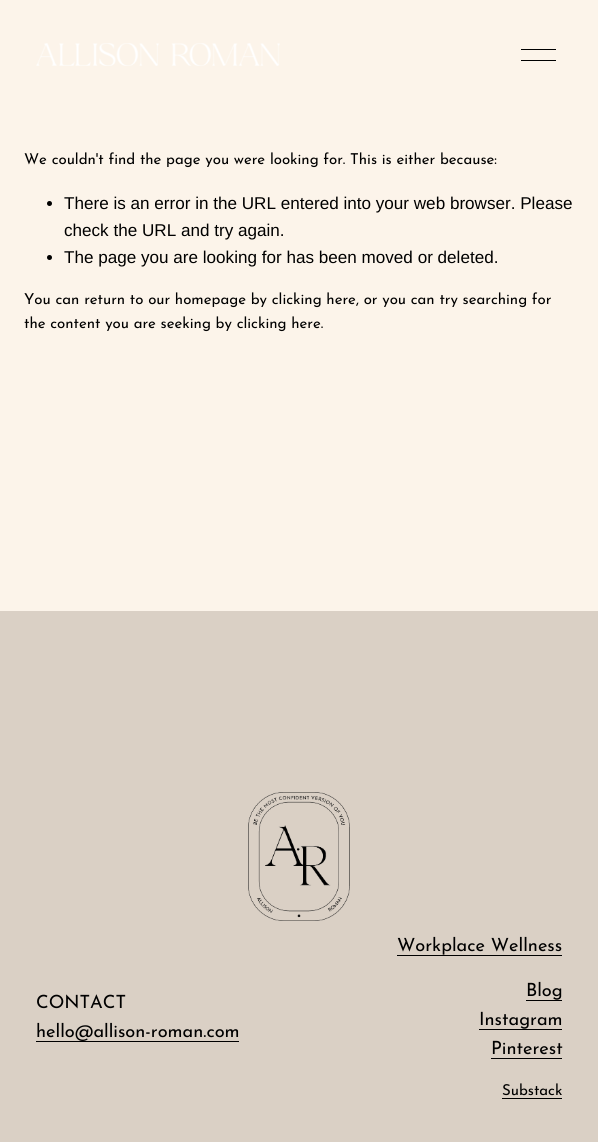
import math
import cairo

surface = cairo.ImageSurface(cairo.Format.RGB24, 598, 1142)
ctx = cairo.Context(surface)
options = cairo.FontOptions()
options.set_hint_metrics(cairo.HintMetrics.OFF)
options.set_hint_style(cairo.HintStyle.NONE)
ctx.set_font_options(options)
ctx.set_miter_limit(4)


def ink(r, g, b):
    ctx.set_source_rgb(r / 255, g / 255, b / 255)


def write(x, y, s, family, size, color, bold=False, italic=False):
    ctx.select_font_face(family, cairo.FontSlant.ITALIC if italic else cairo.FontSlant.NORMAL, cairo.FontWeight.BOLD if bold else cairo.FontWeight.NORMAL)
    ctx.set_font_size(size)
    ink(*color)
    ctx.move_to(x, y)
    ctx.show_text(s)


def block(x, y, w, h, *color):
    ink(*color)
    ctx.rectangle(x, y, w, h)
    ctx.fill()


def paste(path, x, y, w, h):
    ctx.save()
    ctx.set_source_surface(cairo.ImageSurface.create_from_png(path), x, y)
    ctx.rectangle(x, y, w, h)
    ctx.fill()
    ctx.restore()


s1 = dict(family="Josefin Sans", size=15, color=(0, 0, 0))
s2 = dict(family="Liberation Sans", size=17.1, color=(0, 0, 0))
s3 = dict(family="Josefin Sans", size=18.2, color=(0, 0, 0))

ink(252, 244, 234)
ctx.paint()
paste("pic1.png", 36, 43, 244, 23)
block(521, 49, 35, 1, 0, 0, 0)
block(521, 60, 35, 1, 0, 0, 0)
write(24, 164, "We couldn't find the page you were looking for. This is either because:", **s1)
ctx.new_path()
ctx.arc(49.5, 203.5, 2.5, 0, 2 * math.pi)
ctx.fill()
write(64, 209, "There is an error in the URL entered into your web browser. Please", **s2)
write(64, 236, "check the URL and try again.", **s2)
ctx.new_path()
ctx.arc(49.5, 257.5, 2.5, 0, 2 * math.pi)
ctx.fill()
write(64, 263, "The page you are looking for has been moved or deleted.", **s2)
write(24, 304, "You can return to our homepage by clicking here, or you can try searching for", **s1)
write(24, 328, "the content you are seeking by clicking here.", **s1)
block(0, 611, 598, 531, 218, 208, 197)
paste("pic2.png", 248, 792, 102, 129)
write(36, 1008, "CONTACT", **s3)
write(36, 1037, "hello@allison-roman.com", **s3)
block(36, 1041, 203, 1, 0, 0, 0)
write(397, 951, "Workplace Wellness", **s3)
block(397, 955, 165, 1, 0, 0, 0)
write(526, 996, "Blog", **s3)
block(526, 1000, 36, 1, 0, 0, 0)
write(479, 1025, "Instagram", **s3)
block(479, 1029, 83, 1, 0, 0, 0)
write(491, 1054, "Pinterest", **s3)
block(491, 1058, 71, 1, 0, 0, 0)
write(502, 1095, "Substack", **s1)
block(502, 1098, 60, 1, 0, 0, 0)
surface.write_to_png("screenshot.png")
